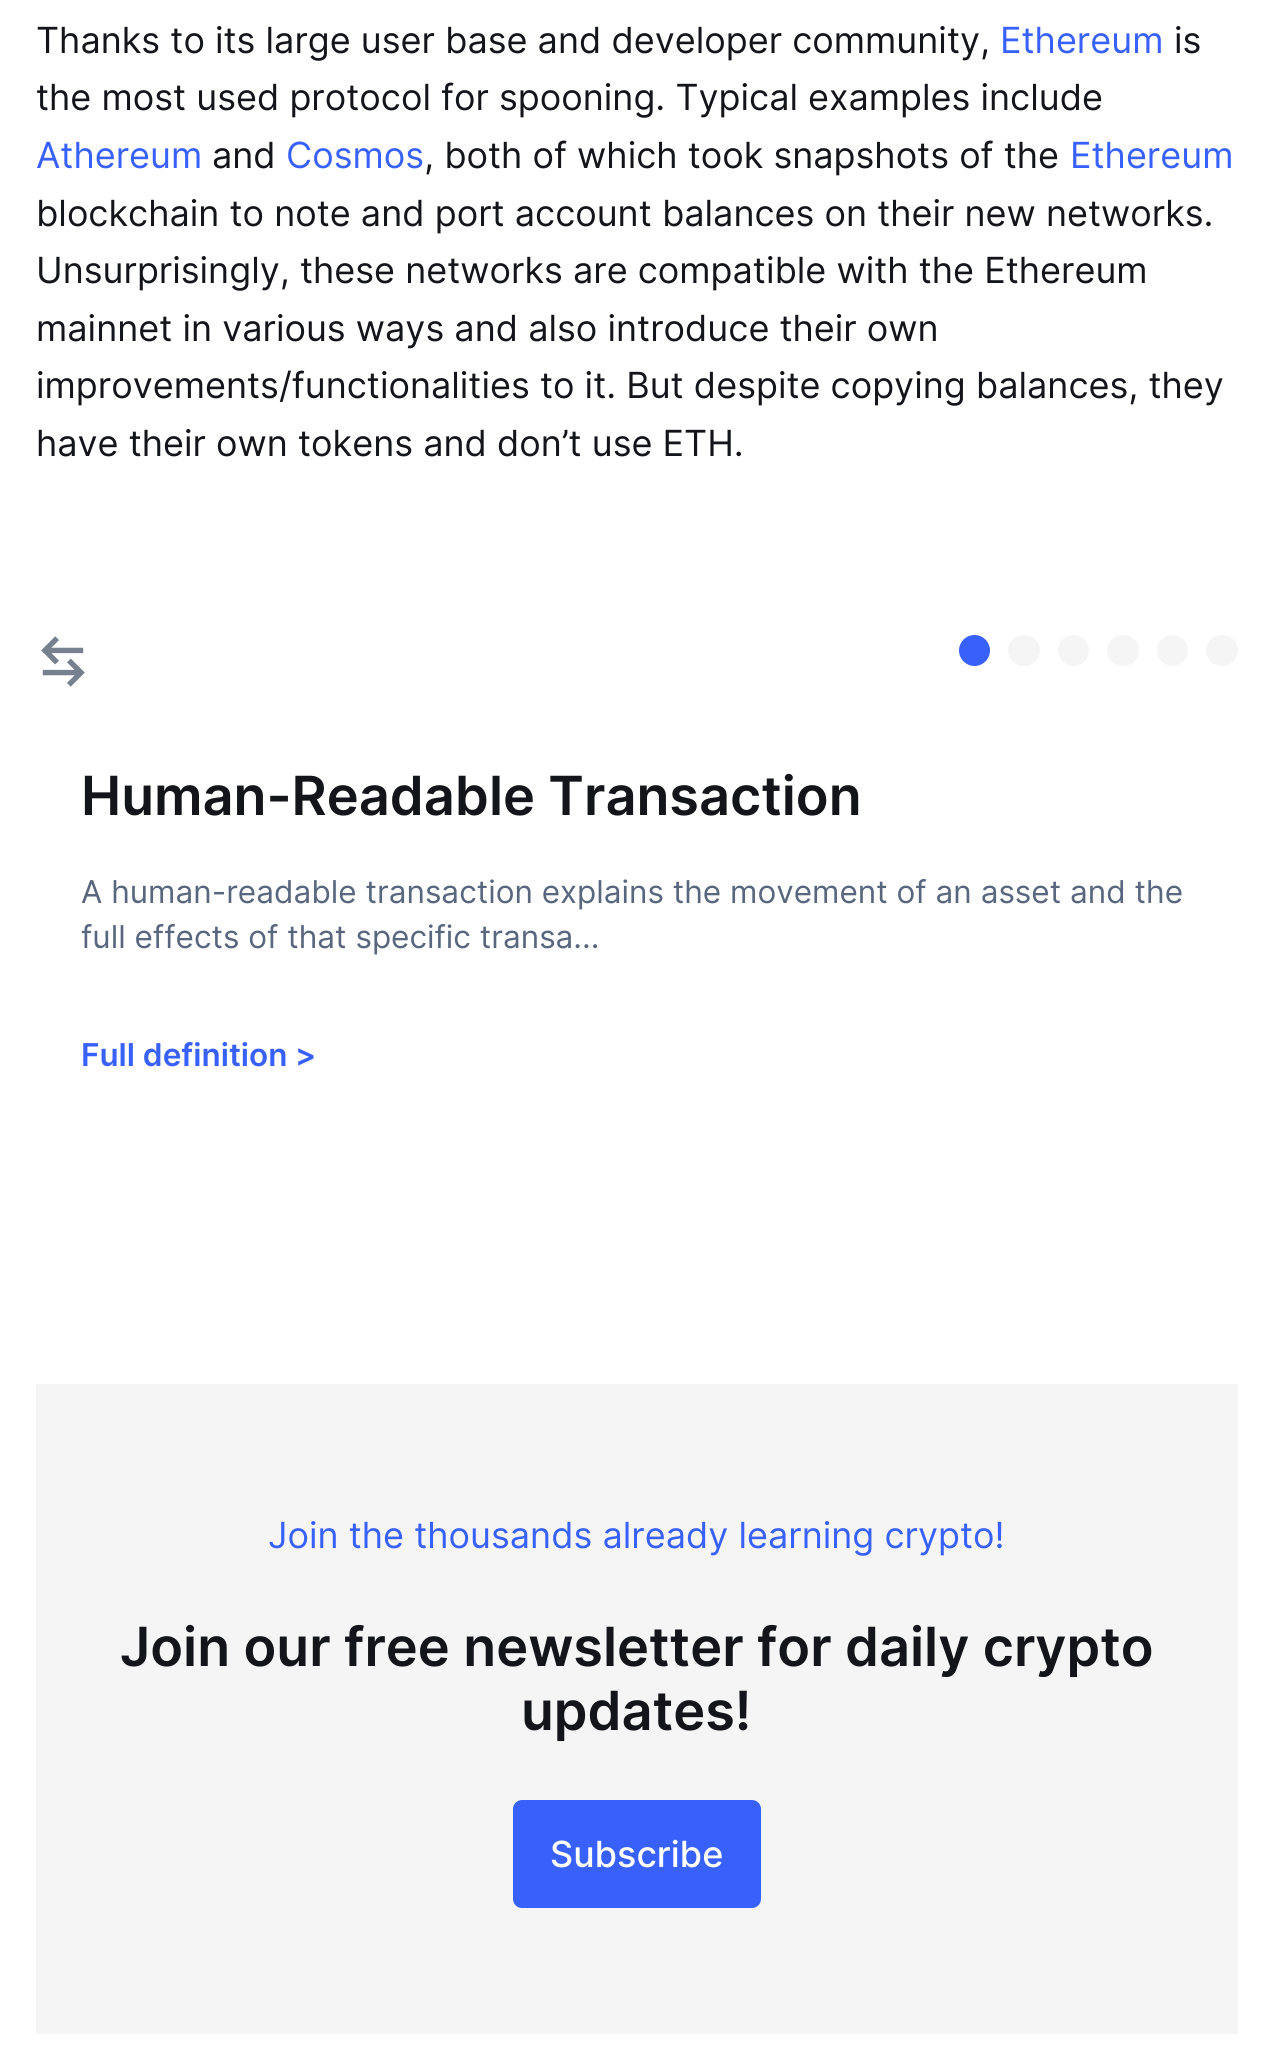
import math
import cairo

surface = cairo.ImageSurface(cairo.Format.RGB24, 1273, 2051)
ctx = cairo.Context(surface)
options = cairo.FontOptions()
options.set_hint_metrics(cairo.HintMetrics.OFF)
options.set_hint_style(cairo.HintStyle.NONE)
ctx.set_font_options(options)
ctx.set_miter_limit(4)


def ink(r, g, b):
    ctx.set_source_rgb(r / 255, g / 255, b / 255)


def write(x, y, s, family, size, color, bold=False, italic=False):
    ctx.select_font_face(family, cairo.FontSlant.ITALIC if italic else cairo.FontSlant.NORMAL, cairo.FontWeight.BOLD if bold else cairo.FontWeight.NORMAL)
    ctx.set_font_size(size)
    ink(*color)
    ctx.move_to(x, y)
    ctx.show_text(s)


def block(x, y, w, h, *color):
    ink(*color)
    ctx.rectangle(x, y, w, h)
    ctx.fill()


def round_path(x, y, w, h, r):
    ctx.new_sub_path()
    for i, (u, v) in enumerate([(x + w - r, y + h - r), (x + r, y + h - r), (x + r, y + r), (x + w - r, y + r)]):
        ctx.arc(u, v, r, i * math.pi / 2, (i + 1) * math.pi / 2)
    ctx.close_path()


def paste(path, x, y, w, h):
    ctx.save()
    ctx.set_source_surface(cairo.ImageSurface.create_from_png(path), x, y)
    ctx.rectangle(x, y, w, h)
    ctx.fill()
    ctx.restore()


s1 = dict(family="Inter", size=36, color=(20, 21, 26))
s2 = dict(family="Inter", size=36, color=(56, 97, 251))
s3 = dict(family="Inter SemiBold", size=54, color=(20, 21, 26))
s4 = dict(family="Inter", size=31.5, color=(88, 102, 126))
s5 = dict(family="Inter SemiBold", size=31.5, color=(56, 97, 251))
s6 = dict(family="Inter Medium", size=36, color=(255, 255, 255))

ink(255, 255, 255)
ctx.paint()
write(36, 53, "Thanks to its large user base and developer community,", **s1)
write(1000, 53, "Ethereum", **s2)
write(1174, 53, "is", **s1)
write(36, 110, "the most used protocol for spooning. Typical examples include", **s1)
write(36, 168, "Athereum", **s2)
write(212, 168, "and", **s1)
write(286, 168, "Cosmos", **s2)
write(424, 168, ", both of which took snapshots of the", **s1)
write(1070, 168, "Ethereum", **s2)
write(36, 226, "blockchain to note and port account balances on their new networks.", **s1)
write(36, 283, "Unsurprisingly, these networks are compatible with the Ethereum", **s1)
write(36, 341, "mainnet in various ways and also introduce their own", **s1)
write(36, 398, "improvements/functionalities to it. But despite copying balances, they", **s1)
write(36, 456, "have their own tokens and don’t use ETH.", **s1)
paste("pic1.png", 41, 636, 44, 51)
ink(56, 97, 251)
ctx.arc(974.5, 650.5, 15.5, 0, 2 * math.pi)
ctx.fill()
ink(245, 245, 245)
round_path(1008, 635, 32, 31, 15.5)
ctx.fill()
ctx.arc(1073.5, 650.5, 15.5, 0, 2 * math.pi)
ctx.fill()
round_path(1107, 635, 32, 31, 15.5)
ctx.fill()
ctx.arc(1172.5, 650.5, 15.5, 0, 2 * math.pi)
ctx.fill()
round_path(1206, 635, 32, 31, 15.5)
ctx.fill()
write(81, 815, "Human-Readable Transaction", **s3)
write(81, 903, "A human-readable transaction explains the movement of an asset and the", **s4)
write(81, 948, "full effects of that specific transa...", **s4)
write(81, 1066, "Full definition >", **s5)
block(36, 1384, 1202, 650, 245, 245, 245)
write(268, 1548, "Join the thousands already learning crypto!", **s2)
write(120, 1666, "Join our free newsletter for daily crypto", **s3)
write(521, 1730, "updates!", **s3)
ink(56, 97, 251)
round_path(513, 1800, 248, 108, 9)
ctx.fill()
write(550, 1867, "Subscribe", **s6)
surface.write_to_png("screenshot.png")
